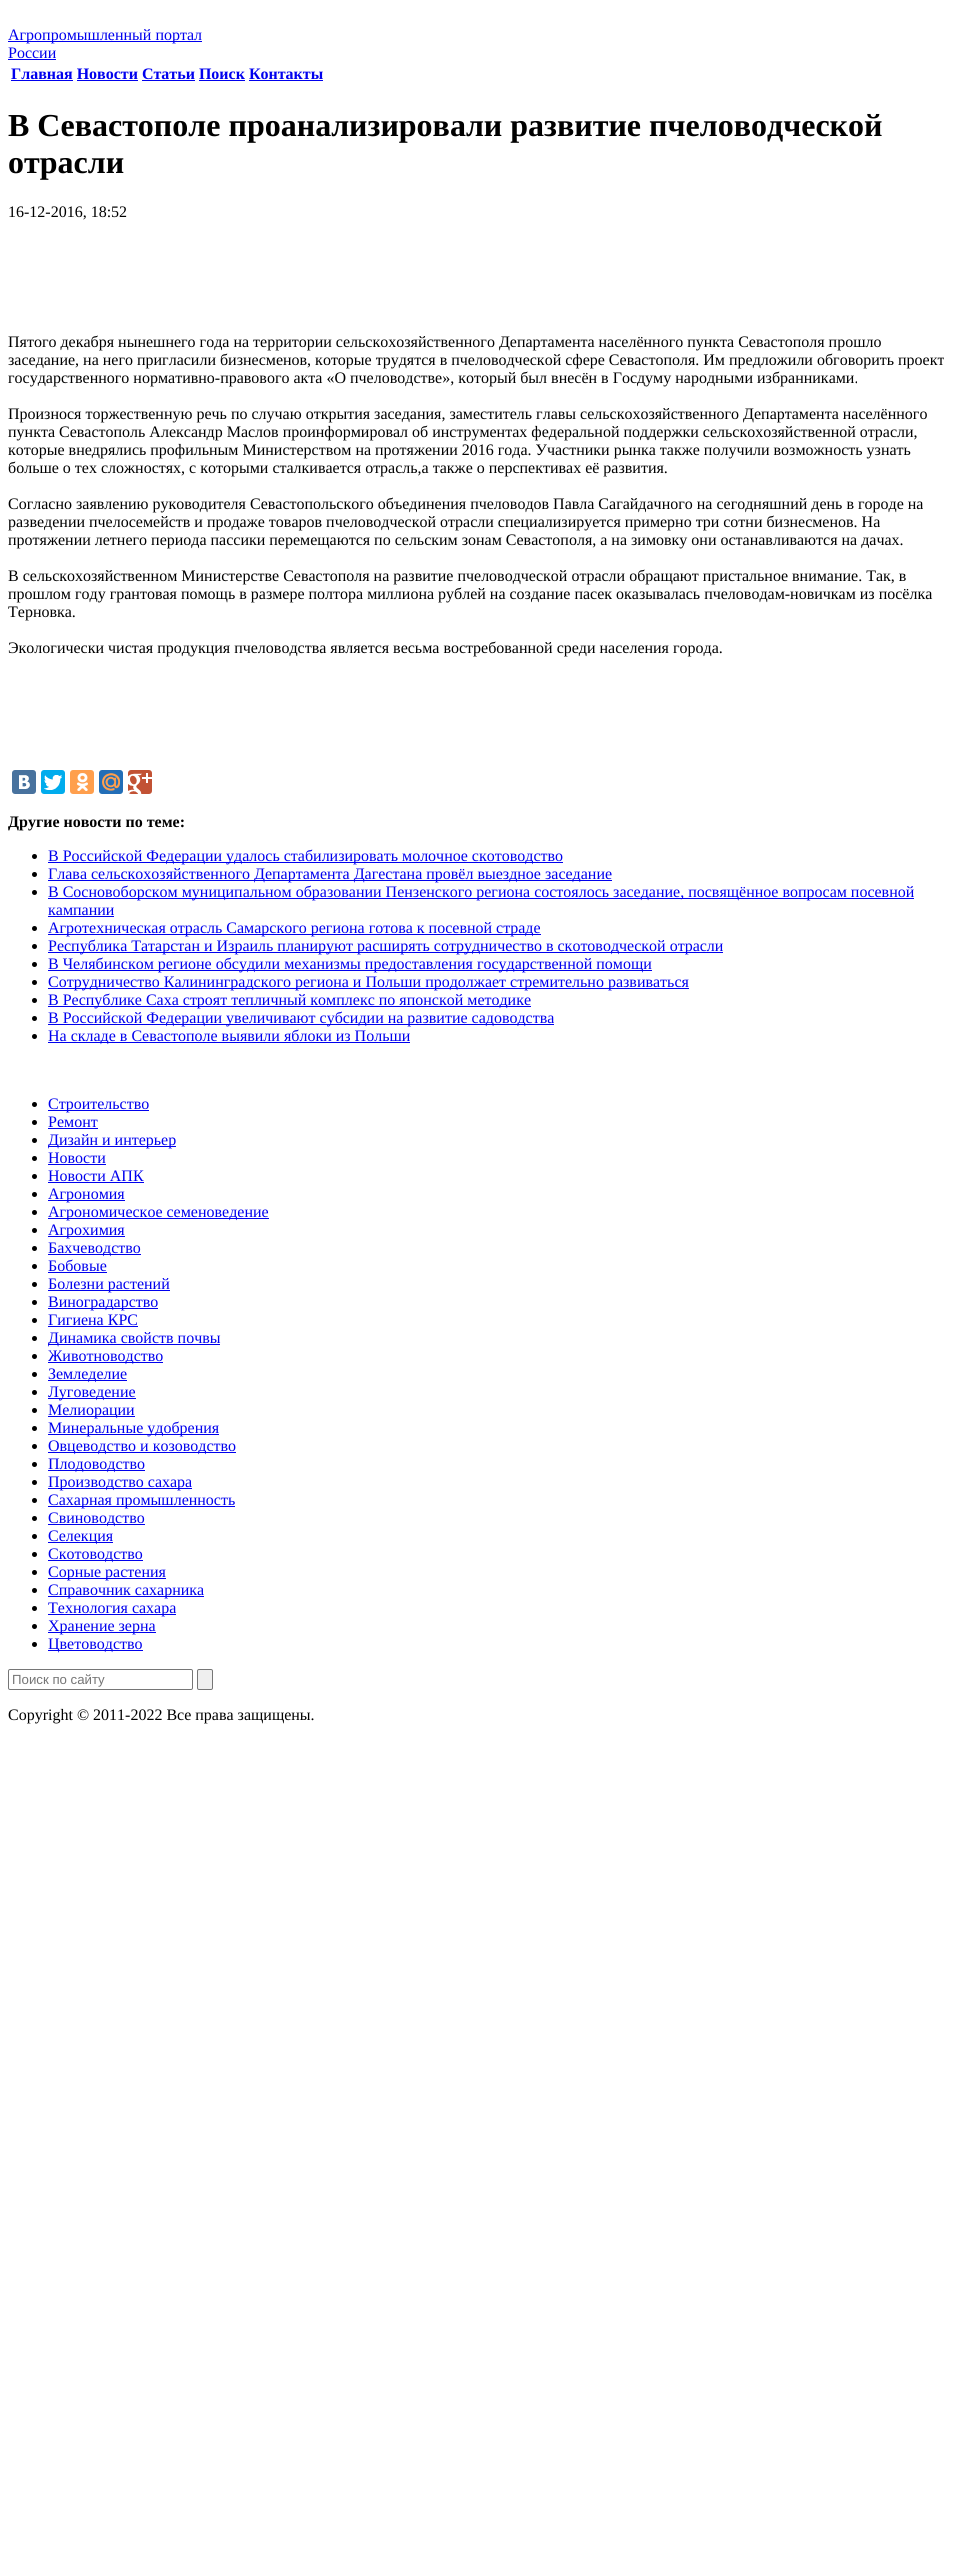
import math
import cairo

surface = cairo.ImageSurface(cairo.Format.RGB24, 956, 2570)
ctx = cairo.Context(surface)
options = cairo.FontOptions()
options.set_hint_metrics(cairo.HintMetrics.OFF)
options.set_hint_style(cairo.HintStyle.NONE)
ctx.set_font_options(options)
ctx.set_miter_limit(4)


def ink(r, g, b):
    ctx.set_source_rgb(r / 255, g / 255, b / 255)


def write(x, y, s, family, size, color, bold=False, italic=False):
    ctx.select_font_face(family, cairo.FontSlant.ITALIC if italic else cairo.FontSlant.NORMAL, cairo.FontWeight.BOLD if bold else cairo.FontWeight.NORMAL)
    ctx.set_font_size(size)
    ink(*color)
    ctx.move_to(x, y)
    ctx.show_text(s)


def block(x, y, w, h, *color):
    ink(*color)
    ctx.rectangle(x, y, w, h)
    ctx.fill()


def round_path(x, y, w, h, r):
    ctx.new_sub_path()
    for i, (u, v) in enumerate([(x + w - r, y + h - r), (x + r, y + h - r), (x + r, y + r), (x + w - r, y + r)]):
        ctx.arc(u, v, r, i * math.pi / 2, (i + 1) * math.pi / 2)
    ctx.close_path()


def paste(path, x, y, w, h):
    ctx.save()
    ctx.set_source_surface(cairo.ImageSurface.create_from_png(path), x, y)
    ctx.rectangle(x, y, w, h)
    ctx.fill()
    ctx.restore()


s1 = dict(family="Liberation Serif", size=16, color=(0, 0, 238))
s2 = dict(family="Liberation Serif", size=16, color=(0, 0, 238), bold=True)
s3 = dict(family="Liberation Serif", size=32, color=(0, 0, 0), bold=True)
s4 = dict(family="Liberation Serif", size=16, color=(0, 0, 0))
s5 = dict(family="Liberation Serif", size=16, color=(0, 0, 0), bold=True)
s6 = dict(family="Liberation Sans", size=13.25, color=(117, 117, 117))

ink(255, 255, 255)
ctx.paint()
block(8, 41, 194, 1, 0, 0, 238)
write(8, 40, "Агропромышленный портал", **s1)
write(8, 58, "России", **s1)
block(8, 59, 48, 1, 0, 0, 238)
write(11, 79, "Главная Новости Статьи Поиск Контакты", **s2)
block(11, 80, 62, 1, 0, 0, 238)
block(77, 80, 61, 1, 0, 0, 238)
block(142, 80, 53, 1, 0, 0, 238)
block(199, 80, 46, 1, 0, 0, 238)
block(249, 80, 74, 1, 0, 0, 238)
write(8, 136, "В Севастополе проанализировали развитие пчеловодческой", **s3)
write(8, 173, "отрасли", **s3)
write(8, 217, "16-12-2016, 18:52", **s4)
write(8, 347, "Пятого декабря нынешнего года на территории сельскохозяйственного Департамента населённого пункта Севастополя прошло", **s4)
write(8, 365, "заседание, на него пригласили бизнесменов, которые трудятся в пчеловодческой сфере Севастополя. Им предложили обговорить проект", **s4)
write(8, 383, "государственного нормативно-правового акта «О пчеловодстве», который был внесён в Госдуму народными избранниками.", **s4)
write(8, 419, "Произнося торжественную речь по случаю открытия заседания, заместитель главы сельскохозяйственного Департамента населённого", **s4)
write(8, 437, "пункта Севастополь Александр Маслов проинформировал об инструментах федеральной поддержки сельскохозяйственной отрасли,", **s4)
write(8, 455, "которые внедрялись профильным Министерством на протяжении 2016 года. Участники рынка также получили возможность узнать", **s4)
write(8, 473, "больше о тех сложностях, с которыми сталкивается отрасль,а также о перспективах её развития.", **s4)
write(8, 509, "Согласно заявлению руководителя Севастопольского объединения пчеловодов Павла Сагайдачного на сегодняшний день в городе на", **s4)
write(8, 527, "разведении пчелосемейств и продаже товаров пчеловодческой отрасли специализируется примерно три сотни бизнесменов. На", **s4)
write(8, 545, "протяжении летнего периода пассики перемещаются по сельским зонам Севастополя, а на зимовку они останавливаются на дачах.", **s4)
write(8, 581, "В сельскохозяйственном Министерстве Севастополя на развитие пчеловодческой отрасли обращают пристальное внимание. Так, в", **s4)
write(8, 599, "прошлом году грантовая помощь в размере полтора миллиона рублей на создание пасек оказывалась пчеловодам-новичкам из посёлка", **s4)
write(8, 617, "Терновка.", **s4)
write(8, 653, "Экологически чистая продукция пчеловодства является весьма востребованной среди населения города.", **s4)
ink(72, 114, 158)
round_path(12, 770, 24, 24, 3)
ctx.fill()
paste("pic1.png", 19, 775, 11, 14)
ink(0, 172, 237)
round_path(41, 770, 24, 24, 3)
ctx.fill()
paste("pic2.png", 44, 775, 18, 15)
ink(255, 159, 77)
round_path(70, 770, 24, 24, 3)
ctx.fill()
paste("pic3.png", 77, 773, 11, 18)
ink(34, 110, 183)
round_path(99, 770, 24, 24, 3)
ctx.fill()
paste("pic4.png", 102, 773, 18, 18)
ink(194, 82, 52)
round_path(128, 770, 24, 24, 3)
ctx.fill()
paste("pic5.png", 128, 773, 24, 21)
write(8, 827, "Другие новости по теме:", **s5)
ctx.new_path()
ctx.arc(34.5, 856.5, 2.5, 0, 2 * math.pi)
ctx.fill()
block(48, 862, 515, 1, 0, 0, 238)
write(48, 861, "В Российской Федерации удалось стабилизировать молочное скотоводство", **s1)
ink(0, 0, 0)
ctx.new_path()
ctx.arc(34.5, 874.5, 2.5, 0, 2 * math.pi)
ctx.fill()
block(48, 880, 564, 1, 0, 0, 238)
write(48, 879, "Глава сельскохозяйственного Департамента Дагестана провёл выездное заседание", **s1)
ink(0, 0, 0)
ctx.new_path()
ctx.arc(34.5, 892.5, 2.5, 0, 2 * math.pi)
ctx.fill()
block(48, 898, 866, 1, 0, 0, 238)
write(48, 897, "В Сосновоборском муниципальном образовании Пензенского региона состоялось заседание, посвящённое вопросам посевной", **s1)
write(48, 915, "кампании", **s1)
block(48, 916, 66, 1, 0, 0, 238)
ink(0, 0, 0)
ctx.new_path()
ctx.arc(34.5, 928.5, 2.5, 0, 2 * math.pi)
ctx.fill()
block(48, 934, 493, 1, 0, 0, 238)
write(48, 933, "Агротехническая отрасль Самарского региона готова к посевной страде", **s1)
ink(0, 0, 0)
ctx.new_path()
ctx.arc(34.5, 946.5, 2.5, 0, 2 * math.pi)
ctx.fill()
block(48, 952, 675, 1, 0, 0, 238)
write(48, 951, "Республика Татарстан и Израиль планируют расширять сотрудничество в скотоводческой отрасли", **s1)
ink(0, 0, 0)
ctx.new_path()
ctx.arc(34.5, 964.5, 2.5, 0, 2 * math.pi)
ctx.fill()
block(48, 970, 604, 1, 0, 0, 238)
write(48, 969, "В Челябинском регионе обсудили механизмы предоставления государственной помощи", **s1)
ink(0, 0, 0)
ctx.new_path()
ctx.arc(34.5, 982.5, 2.5, 0, 2 * math.pi)
ctx.fill()
block(48, 988, 641, 1, 0, 0, 238)
write(48, 987, "Сотрудничество Калининградского региона и Польши продолжает стремительно развиваться", **s1)
ink(0, 0, 0)
ctx.new_path()
ctx.arc(34.5, 1000.5, 2.5, 0, 2 * math.pi)
ctx.fill()
block(48, 1006, 483, 1, 0, 0, 238)
write(48, 1005, "В Республике Саха строят тепличный комплекс по японской методике", **s1)
ink(0, 0, 0)
ctx.new_path()
ctx.arc(34.5, 1018.5, 2.5, 0, 2 * math.pi)
ctx.fill()
block(48, 1024, 506, 1, 0, 0, 238)
write(48, 1023, "В Российской Федерации увеличивают субсидии на развитие садоводства", **s1)
ink(0, 0, 0)
ctx.new_path()
ctx.arc(34.5, 1036.5, 2.5, 0, 2 * math.pi)
ctx.fill()
block(48, 1042, 362, 1, 0, 0, 238)
write(48, 1041, "На складе в Севастополе выявили яблоки из Польши", **s1)
ink(0, 0, 0)
ctx.new_path()
ctx.arc(34.5, 1104.5, 2.5, 0, 2 * math.pi)
ctx.fill()
block(48, 1110, 101, 1, 0, 0, 238)
write(48, 1109, "Строительство", **s1)
ink(0, 0, 0)
ctx.new_path()
ctx.arc(34.5, 1122.5, 2.5, 0, 2 * math.pi)
ctx.fill()
write(48, 1127, "Ремонт", **s1)
block(48, 1128, 50, 1, 0, 0, 238)
ink(0, 0, 0)
ctx.new_path()
ctx.arc(34.5, 1140.5, 2.5, 0, 2 * math.pi)
ctx.fill()
block(48, 1146, 128, 1, 0, 0, 238)
write(48, 1145, "Дизайн и интерьер", **s1)
ink(0, 0, 0)
ctx.new_path()
ctx.arc(34.5, 1158.5, 2.5, 0, 2 * math.pi)
ctx.fill()
write(48, 1163, "Новости", **s1)
block(48, 1164, 58, 1, 0, 0, 238)
ink(0, 0, 0)
ctx.new_path()
ctx.arc(34.5, 1176.5, 2.5, 0, 2 * math.pi)
ctx.fill()
write(48, 1181, "Новости АПК", **s1)
block(48, 1182, 96, 1, 0, 0, 238)
ink(0, 0, 0)
ctx.new_path()
ctx.arc(34.5, 1194.5, 2.5, 0, 2 * math.pi)
ctx.fill()
block(48, 1200, 77, 1, 0, 0, 238)
write(48, 1199, "Агрономия", **s1)
ink(0, 0, 0)
ctx.new_path()
ctx.arc(34.5, 1212.5, 2.5, 0, 2 * math.pi)
ctx.fill()
block(48, 1218, 221, 1, 0, 0, 238)
write(48, 1217, "Агрономическое семеноведение", **s1)
ink(0, 0, 0)
ctx.new_path()
ctx.arc(34.5, 1230.5, 2.5, 0, 2 * math.pi)
ctx.fill()
block(48, 1236, 77, 1, 0, 0, 238)
write(48, 1235, "Агрохимия", **s1)
ink(0, 0, 0)
ctx.new_path()
ctx.arc(34.5, 1248.5, 2.5, 0, 2 * math.pi)
ctx.fill()
block(48, 1254, 93, 1, 0, 0, 238)
write(48, 1253, "Бахчеводство", **s1)
ink(0, 0, 0)
ctx.new_path()
ctx.arc(34.5, 1266.5, 2.5, 0, 2 * math.pi)
ctx.fill()
write(48, 1271, "Бобовые", **s1)
block(48, 1272, 59, 1, 0, 0, 238)
ink(0, 0, 0)
ctx.new_path()
ctx.arc(34.5, 1284.5, 2.5, 0, 2 * math.pi)
ctx.fill()
block(48, 1290, 122, 1, 0, 0, 238)
write(48, 1289, "Болезни растений", **s1)
ink(0, 0, 0)
ctx.new_path()
ctx.arc(34.5, 1302.5, 2.5, 0, 2 * math.pi)
ctx.fill()
block(48, 1308, 110, 1, 0, 0, 238)
write(48, 1307, "Виноградарство", **s1)
ink(0, 0, 0)
ctx.new_path()
ctx.arc(34.5, 1320.5, 2.5, 0, 2 * math.pi)
ctx.fill()
write(48, 1325, "Гигиена КРС", **s1)
block(48, 1326, 90, 1, 0, 0, 238)
ink(0, 0, 0)
ctx.new_path()
ctx.arc(34.5, 1338.5, 2.5, 0, 2 * math.pi)
ctx.fill()
block(48, 1344, 172, 1, 0, 0, 238)
write(48, 1343, "Динамика свойств почвы", **s1)
ink(0, 0, 0)
ctx.new_path()
ctx.arc(34.5, 1356.5, 2.5, 0, 2 * math.pi)
ctx.fill()
block(48, 1362, 115, 1, 0, 0, 238)
write(48, 1361, "Животноводство", **s1)
ink(0, 0, 0)
ctx.new_path()
ctx.arc(34.5, 1374.5, 2.5, 0, 2 * math.pi)
ctx.fill()
block(48, 1380, 79, 1, 0, 0, 238)
write(48, 1379, "Земледелие", **s1)
ink(0, 0, 0)
ctx.new_path()
ctx.arc(34.5, 1392.5, 2.5, 0, 2 * math.pi)
ctx.fill()
block(48, 1398, 88, 1, 0, 0, 238)
write(48, 1397, "Луговедение", **s1)
ink(0, 0, 0)
ctx.new_path()
ctx.arc(34.5, 1410.5, 2.5, 0, 2 * math.pi)
ctx.fill()
block(48, 1416, 87, 1, 0, 0, 238)
write(48, 1415, "Мелиорации", **s1)
ink(0, 0, 0)
ctx.new_path()
ctx.arc(34.5, 1428.5, 2.5, 0, 2 * math.pi)
ctx.fill()
block(48, 1434, 171, 1, 0, 0, 238)
write(48, 1433, "Минеральные удобрения", **s1)
ink(0, 0, 0)
ctx.new_path()
ctx.arc(34.5, 1446.5, 2.5, 0, 2 * math.pi)
ctx.fill()
block(48, 1452, 188, 1, 0, 0, 238)
write(48, 1451, "Овцеводство и козоводство", **s1)
ink(0, 0, 0)
ctx.new_path()
ctx.arc(34.5, 1464.5, 2.5, 0, 2 * math.pi)
ctx.fill()
block(48, 1470, 97, 1, 0, 0, 238)
write(48, 1469, "Плодоводство", **s1)
ink(0, 0, 0)
ctx.new_path()
ctx.arc(34.5, 1482.5, 2.5, 0, 2 * math.pi)
ctx.fill()
block(48, 1488, 144, 1, 0, 0, 238)
write(48, 1487, "Производство сахара", **s1)
ink(0, 0, 0)
ctx.new_path()
ctx.arc(34.5, 1500.5, 2.5, 0, 2 * math.pi)
ctx.fill()
block(48, 1506, 187, 1, 0, 0, 238)
write(48, 1505, "Сахарная промышленность", **s1)
ink(0, 0, 0)
ctx.new_path()
ctx.arc(34.5, 1518.5, 2.5, 0, 2 * math.pi)
ctx.fill()
block(48, 1524, 97, 1, 0, 0, 238)
write(48, 1523, "Свиноводство", **s1)
ink(0, 0, 0)
ctx.new_path()
ctx.arc(34.5, 1536.5, 2.5, 0, 2 * math.pi)
ctx.fill()
block(48, 1542, 65, 1, 0, 0, 238)
write(48, 1541, "Селекция", **s1)
ink(0, 0, 0)
ctx.new_path()
ctx.arc(34.5, 1554.5, 2.5, 0, 2 * math.pi)
ctx.fill()
block(48, 1560, 95, 1, 0, 0, 238)
write(48, 1559, "Скотоводство", **s1)
ink(0, 0, 0)
ctx.new_path()
ctx.arc(34.5, 1572.5, 2.5, 0, 2 * math.pi)
ctx.fill()
block(48, 1578, 118, 1, 0, 0, 238)
write(48, 1577, "Сорные растения", **s1)
ink(0, 0, 0)
ctx.new_path()
ctx.arc(34.5, 1590.5, 2.5, 0, 2 * math.pi)
ctx.fill()
block(48, 1596, 156, 1, 0, 0, 238)
write(48, 1595, "Справочник сахарника", **s1)
ink(0, 0, 0)
ctx.new_path()
ctx.arc(34.5, 1608.5, 2.5, 0, 2 * math.pi)
ctx.fill()
block(48, 1614, 128, 1, 0, 0, 238)
write(48, 1613, "Технология сахара", **s1)
ink(0, 0, 0)
ctx.new_path()
ctx.arc(34.5, 1626.5, 2.5, 0, 2 * math.pi)
ctx.fill()
block(48, 1632, 108, 1, 0, 0, 238)
write(48, 1631, "Хранение зерна", **s1)
ink(0, 0, 0)
ctx.new_path()
ctx.arc(34.5, 1644.5, 2.5, 0, 2 * math.pi)
ctx.fill()
block(48, 1650, 95, 1, 0, 0, 238)
write(48, 1649, "Цветоводство", **s1)
round_path(8.5, 1669.5, 184, 20, 1.5)
ink(118, 118, 118)
ctx.set_line_width(1)
ctx.stroke()
write(12, 1684, "Поиск по сайту", **s6)
ink(239, 239, 239)
round_path(197.5, 1669.5, 15, 20, 1.5)
ctx.fill_preserve()
ink(118, 118, 118)
ctx.stroke()
write(8, 1720, "Copyright © 2011-2022 Все права защищены.", **s4)
surface.write_to_png("screenshot.png")
